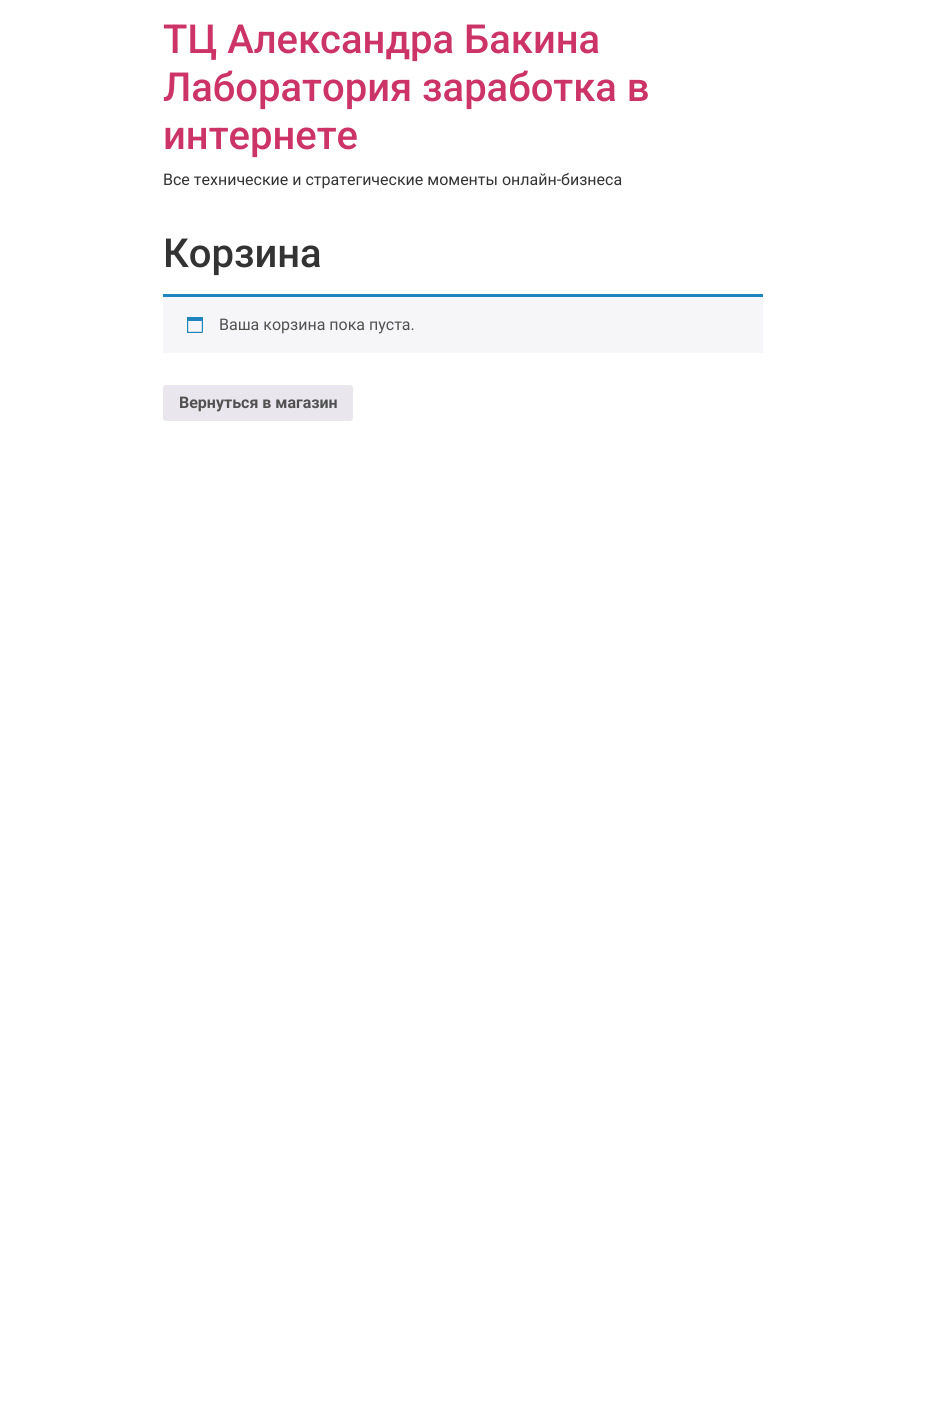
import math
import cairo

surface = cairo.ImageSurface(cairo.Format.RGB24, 925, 1419)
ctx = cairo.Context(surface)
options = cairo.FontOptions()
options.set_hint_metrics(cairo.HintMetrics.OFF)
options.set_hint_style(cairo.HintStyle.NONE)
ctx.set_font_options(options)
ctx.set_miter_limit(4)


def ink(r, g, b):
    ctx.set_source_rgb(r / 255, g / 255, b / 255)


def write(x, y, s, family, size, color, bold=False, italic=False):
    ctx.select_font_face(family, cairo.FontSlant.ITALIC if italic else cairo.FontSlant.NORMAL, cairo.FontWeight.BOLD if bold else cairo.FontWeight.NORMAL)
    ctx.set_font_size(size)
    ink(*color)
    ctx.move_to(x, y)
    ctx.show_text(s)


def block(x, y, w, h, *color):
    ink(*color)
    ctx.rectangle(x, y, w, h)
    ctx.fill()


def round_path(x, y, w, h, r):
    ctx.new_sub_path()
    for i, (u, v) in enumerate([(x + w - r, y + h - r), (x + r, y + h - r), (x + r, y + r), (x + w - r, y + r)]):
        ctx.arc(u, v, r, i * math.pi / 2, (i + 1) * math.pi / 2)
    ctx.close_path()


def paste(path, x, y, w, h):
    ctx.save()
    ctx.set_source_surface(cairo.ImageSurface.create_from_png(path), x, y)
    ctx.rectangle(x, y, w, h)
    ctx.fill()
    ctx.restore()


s1 = dict(family="Roboto Medium", size=40, color=(204, 51, 102))
s2 = dict(family="Roboto", size=16, color=(51, 51, 51))
s3 = dict(family="Roboto Medium", size=40, color=(51, 51, 51))
s4 = dict(family="Roboto", size=16, color=(81, 81, 81))
s5 = dict(family="Roboto", size=16, color=(81, 81, 81), bold=True)

ink(255, 255, 255)
ctx.paint()
write(163, 53, "ТЦ Александра Бакина", **s1)
write(163, 101, "Лаборатория заработка в", **s1)
write(163, 149, "интернете", **s1)
write(163, 185, "Все технические и стратегические моменты онлайн-бизнеса", **s2)
write(163, 267, "Корзина", **s3)
block(163, 297, 600, 56, 246, 245, 248)
block(163, 294, 600, 3, 30, 133, 190)
paste("pic1.png", 187, 317, 16, 16)
write(219, 330, "Ваша корзина пока пуста.", **s4)
ink(233, 230, 237)
round_path(163, 385, 190, 36, 3)
ctx.fill()
write(179, 408, "Вернуться в магазин", **s5)
surface.write_to_png("screenshot.png")
